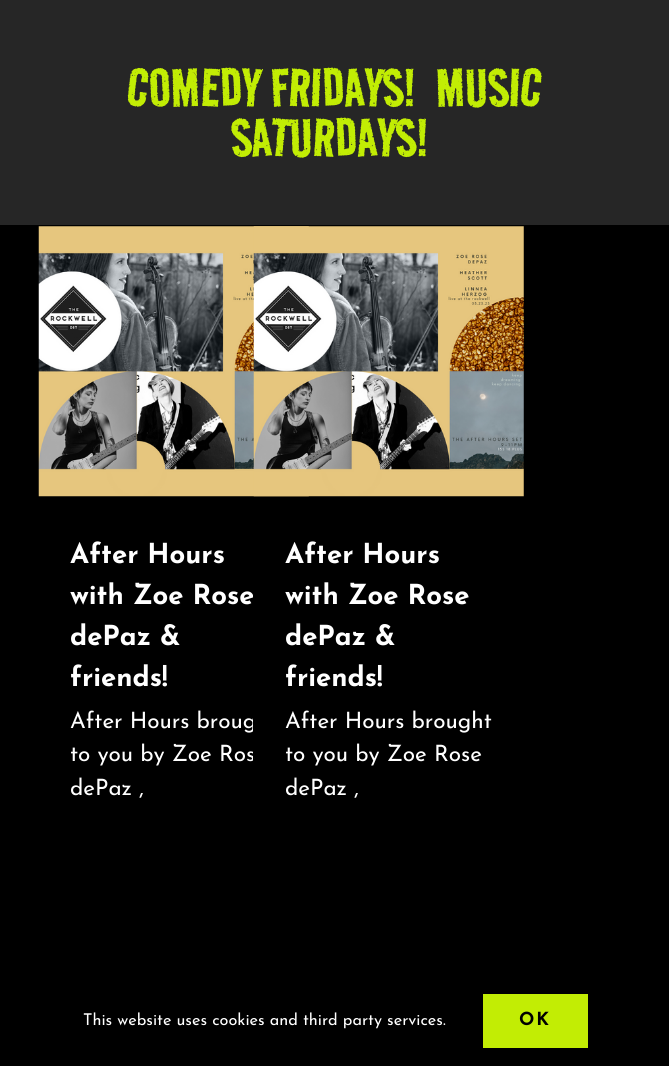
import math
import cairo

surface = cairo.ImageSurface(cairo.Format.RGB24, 669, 1066)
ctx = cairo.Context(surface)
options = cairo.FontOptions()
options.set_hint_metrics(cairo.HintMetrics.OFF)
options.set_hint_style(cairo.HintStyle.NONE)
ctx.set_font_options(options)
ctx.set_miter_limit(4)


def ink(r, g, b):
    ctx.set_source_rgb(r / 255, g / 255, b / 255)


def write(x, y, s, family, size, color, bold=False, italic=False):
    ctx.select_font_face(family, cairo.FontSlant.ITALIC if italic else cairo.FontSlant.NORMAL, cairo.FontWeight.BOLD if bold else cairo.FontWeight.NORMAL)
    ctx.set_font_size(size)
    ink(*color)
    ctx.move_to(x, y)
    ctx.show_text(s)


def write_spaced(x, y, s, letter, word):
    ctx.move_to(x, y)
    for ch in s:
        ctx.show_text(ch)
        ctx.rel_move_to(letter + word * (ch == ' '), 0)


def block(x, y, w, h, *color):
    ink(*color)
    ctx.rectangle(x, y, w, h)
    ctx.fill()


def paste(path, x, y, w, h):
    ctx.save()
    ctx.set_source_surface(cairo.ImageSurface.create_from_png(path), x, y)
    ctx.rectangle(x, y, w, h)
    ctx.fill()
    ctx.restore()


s1 = dict(family="Road Rage", size=62.5, color=(194, 237, 4))
s2 = dict(family="Josefin Sans", size=27.5, color=(255, 255, 255), bold=True)
s3 = dict(family="Josefin Sans", size=22.5, color=(255, 255, 255))
s4 = dict(family="Josefin Sans", size=16.25, color=(255, 255, 255))

ink(0, 0, 0)
ctx.paint()
block(0, 0, 669, 225, 38, 38, 38)
write(127, 106, "COMEDY FRIDAYS!  MUSIC", **s1)
write(231, 156, "SATURDAYS!", **s1)
paste("pic1.png", 38, 226, 271, 271)
write(70, 563, "After Hours", **s2)
write(70, 604, "with Zoe Rose", **s2)
write(70, 645, "dePaz &", **s2)
write(70, 686, "friends!", **s2)
write(70, 728, "After Hours broug", **s3)
write(70, 761, "to you by Zoe Ros", **s3)
write(70, 795, "dePaz ,", **s3)
block(254, 718, 1, 12, 0, 0, 0)
block(253, 595, 1, 166, 0, 0, 0)
paste("pic2.png", 253, 226, 271, 271)
write(285, 563, "After Hours", **s2)
write(285, 604, "with Zoe Rose", **s2)
write(285, 645, "dePaz &", **s2)
write(285, 686, "friends!", **s2)
write(285, 728, "After Hours brought", **s3)
write(285, 761, "to you by Zoe Rose", **s3)
write(285, 795, "dePaz ,", **s3)
write(83, 1025, "This website uses cookies and third party services.", **s4)
block(483, 994, 105, 54, 194, 237, 4)
ctx.select_font_face("Josefin Sans", cairo.FontSlant.NORMAL, cairo.FontWeight.BOLD)
ctx.set_font_size(18)
ink(0, 0, 0)
write_spaced(519, 1025, "OK", 2, 0)
surface.write_to_png("screenshot.png")
